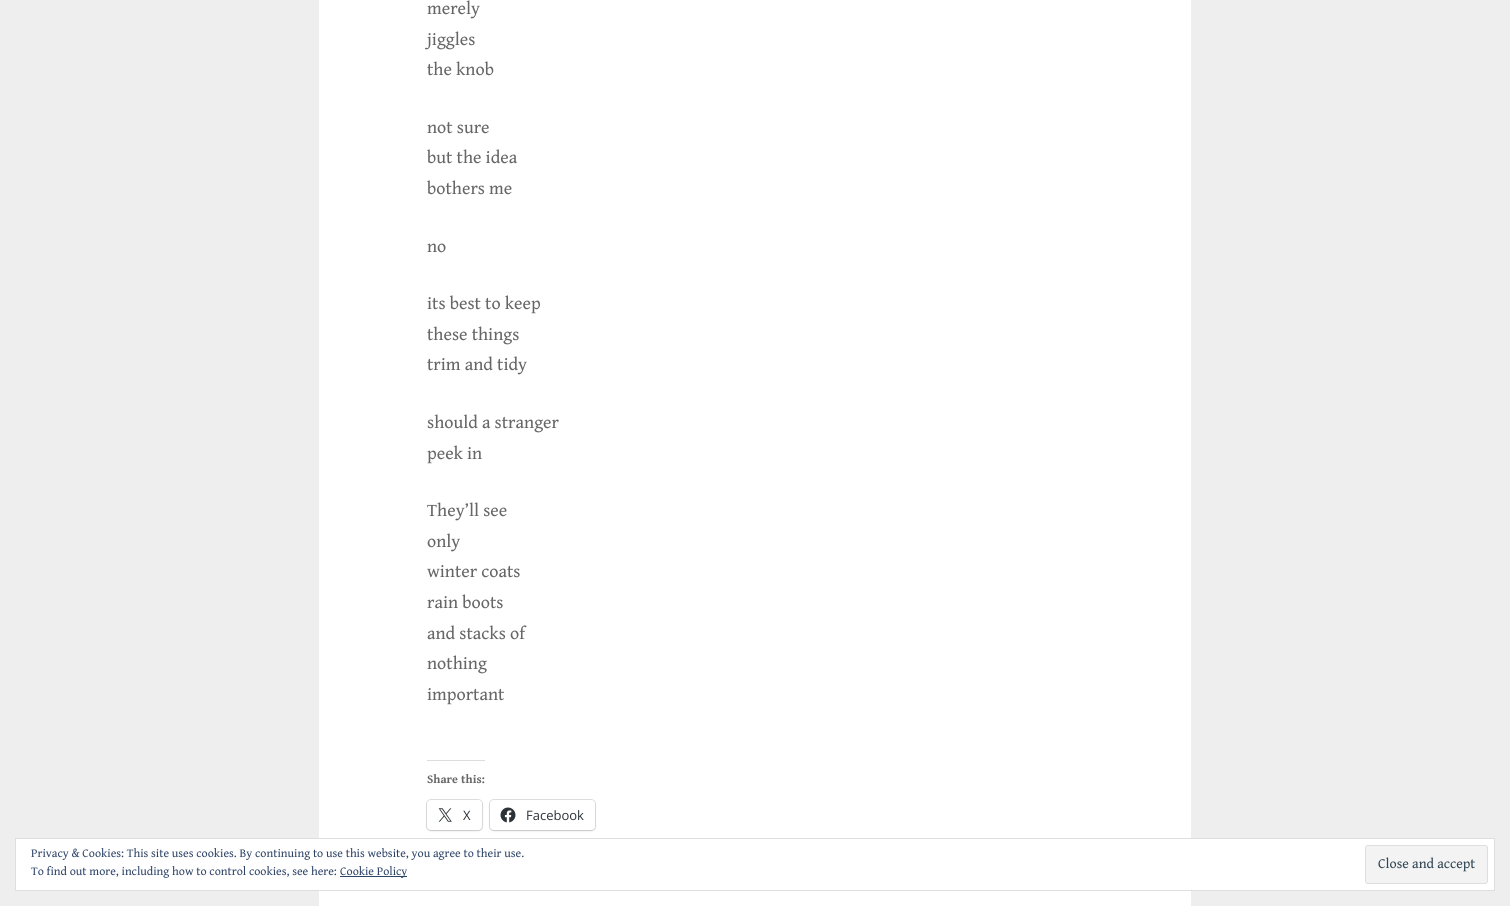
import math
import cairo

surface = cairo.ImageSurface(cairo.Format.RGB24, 1510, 906)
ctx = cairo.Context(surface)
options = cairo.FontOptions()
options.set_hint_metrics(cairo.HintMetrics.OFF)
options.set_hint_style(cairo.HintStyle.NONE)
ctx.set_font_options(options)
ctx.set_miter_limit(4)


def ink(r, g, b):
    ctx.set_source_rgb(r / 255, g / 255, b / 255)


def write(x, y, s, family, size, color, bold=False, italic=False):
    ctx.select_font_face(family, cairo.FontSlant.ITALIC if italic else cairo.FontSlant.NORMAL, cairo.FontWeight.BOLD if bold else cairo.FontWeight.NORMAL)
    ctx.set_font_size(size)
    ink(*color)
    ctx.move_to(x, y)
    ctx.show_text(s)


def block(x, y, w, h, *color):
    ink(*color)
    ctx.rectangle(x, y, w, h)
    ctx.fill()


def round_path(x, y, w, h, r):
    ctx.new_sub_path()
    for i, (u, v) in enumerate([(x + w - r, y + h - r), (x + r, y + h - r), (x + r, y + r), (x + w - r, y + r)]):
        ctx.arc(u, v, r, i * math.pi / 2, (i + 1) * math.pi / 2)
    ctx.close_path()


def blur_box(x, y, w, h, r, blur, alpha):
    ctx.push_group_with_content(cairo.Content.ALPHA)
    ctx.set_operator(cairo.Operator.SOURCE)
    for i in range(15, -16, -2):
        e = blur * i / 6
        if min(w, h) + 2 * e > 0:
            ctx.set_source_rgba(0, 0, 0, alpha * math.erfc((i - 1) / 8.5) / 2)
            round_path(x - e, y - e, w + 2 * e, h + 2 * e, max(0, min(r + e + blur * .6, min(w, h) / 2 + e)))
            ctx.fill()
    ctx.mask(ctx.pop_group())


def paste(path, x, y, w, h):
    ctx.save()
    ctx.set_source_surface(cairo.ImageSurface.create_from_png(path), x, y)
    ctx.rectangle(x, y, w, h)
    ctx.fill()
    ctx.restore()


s1 = dict(family="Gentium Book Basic", size=18, color=(102, 102, 102))
s2 = dict(family="Gentium Book Basic", size=12, color=(102, 102, 102), bold=True)
s3 = dict(family="Open Sans", size=13, color=(44, 51, 56))
s4 = dict(family="Gentium Book Basic", size=12, color=(46, 68, 103))
s5 = dict(family="Gentium Book Basic", size=14, color=(46, 68, 83))

ink(238, 238, 238)
ctx.paint()
block(319, 0, 872, 906, 255, 255, 255)
write(427, 14, "merely", **s1)
write(427, 45, "jiggles", **s1)
write(427, 75, "the knob", **s1)
write(427, 133, "not sure", **s1)
write(427, 163, "but the idea", **s1)
write(427, 194, "bothers me", **s1)
write(427, 252, "no", **s1)
write(427, 309, "its best to keep", **s1)
write(427, 340, "these things", **s1)
write(427, 370, "trim and tidy", **s1)
write(427, 428, "should a stranger", **s1)
write(427, 459, "peek in", **s1)
write(427, 516, "They’ll see", **s1)
write(427, 547, "only", **s1)
write(427, 577, "winter coats", **s1)
write(427, 608, "rain boots", **s1)
write(427, 639, "and stacks of", **s1)
write(427, 669, "nothing", **s1)
write(427, 700, "important", **s1)
block(427, 760, 58, 1, 220, 220, 222)
write(427, 783, "Share this:", **s2)
round_path(426.5, 799.5, 56, 31, 4.5)
ink(224, 224, 224)
ctx.set_line_width(1)
ctx.stroke()
ink(0, 0, 0)
blur_box(427, 801, 55, 30, 4, 1, 0.12)
ink(255, 255, 255)
round_path(427, 800, 55, 30, 4)
ctx.fill()
paste("pic1.png", 438, 808, 14, 14)
write(463, 820, "X", **s3)
round_path(489.5, 799.5, 106, 31, 4.5)
ink(224, 224, 224)
ctx.stroke()
ink(0, 0, 0)
blur_box(490, 801, 105, 30, 4, 1, 0.12)
ink(255, 255, 255)
round_path(490, 800, 105, 30, 4)
ctx.fill()
paste("pic2.png", 500, 807, 16, 16)
write(526, 820, "Facebook", **s3)
ink(255, 255, 255)
ctx.rectangle(15.5, 838.5, 1479, 52)
ctx.fill_preserve()
ink(222, 222, 222)
ctx.stroke()
write(31, 857, "Privacy & Cookies: This site uses cookies. By continuing to use this website, you agree to their use.", **s4)
write(31, 875, "To find out more, including how to control cookies, see here:", **s4)
block(340, 876, 67, 1, 46, 68, 103)
write(340, 875, "Cookie Policy", **s4)
ink(243, 243, 243)
round_path(1365.5, 845.5, 122, 38, 2.5)
ctx.fill_preserve()
ink(222, 222, 222)
ctx.stroke()
write(1378, 868, "Close and accept", **s5)
surface.write_to_png("screenshot.png")
